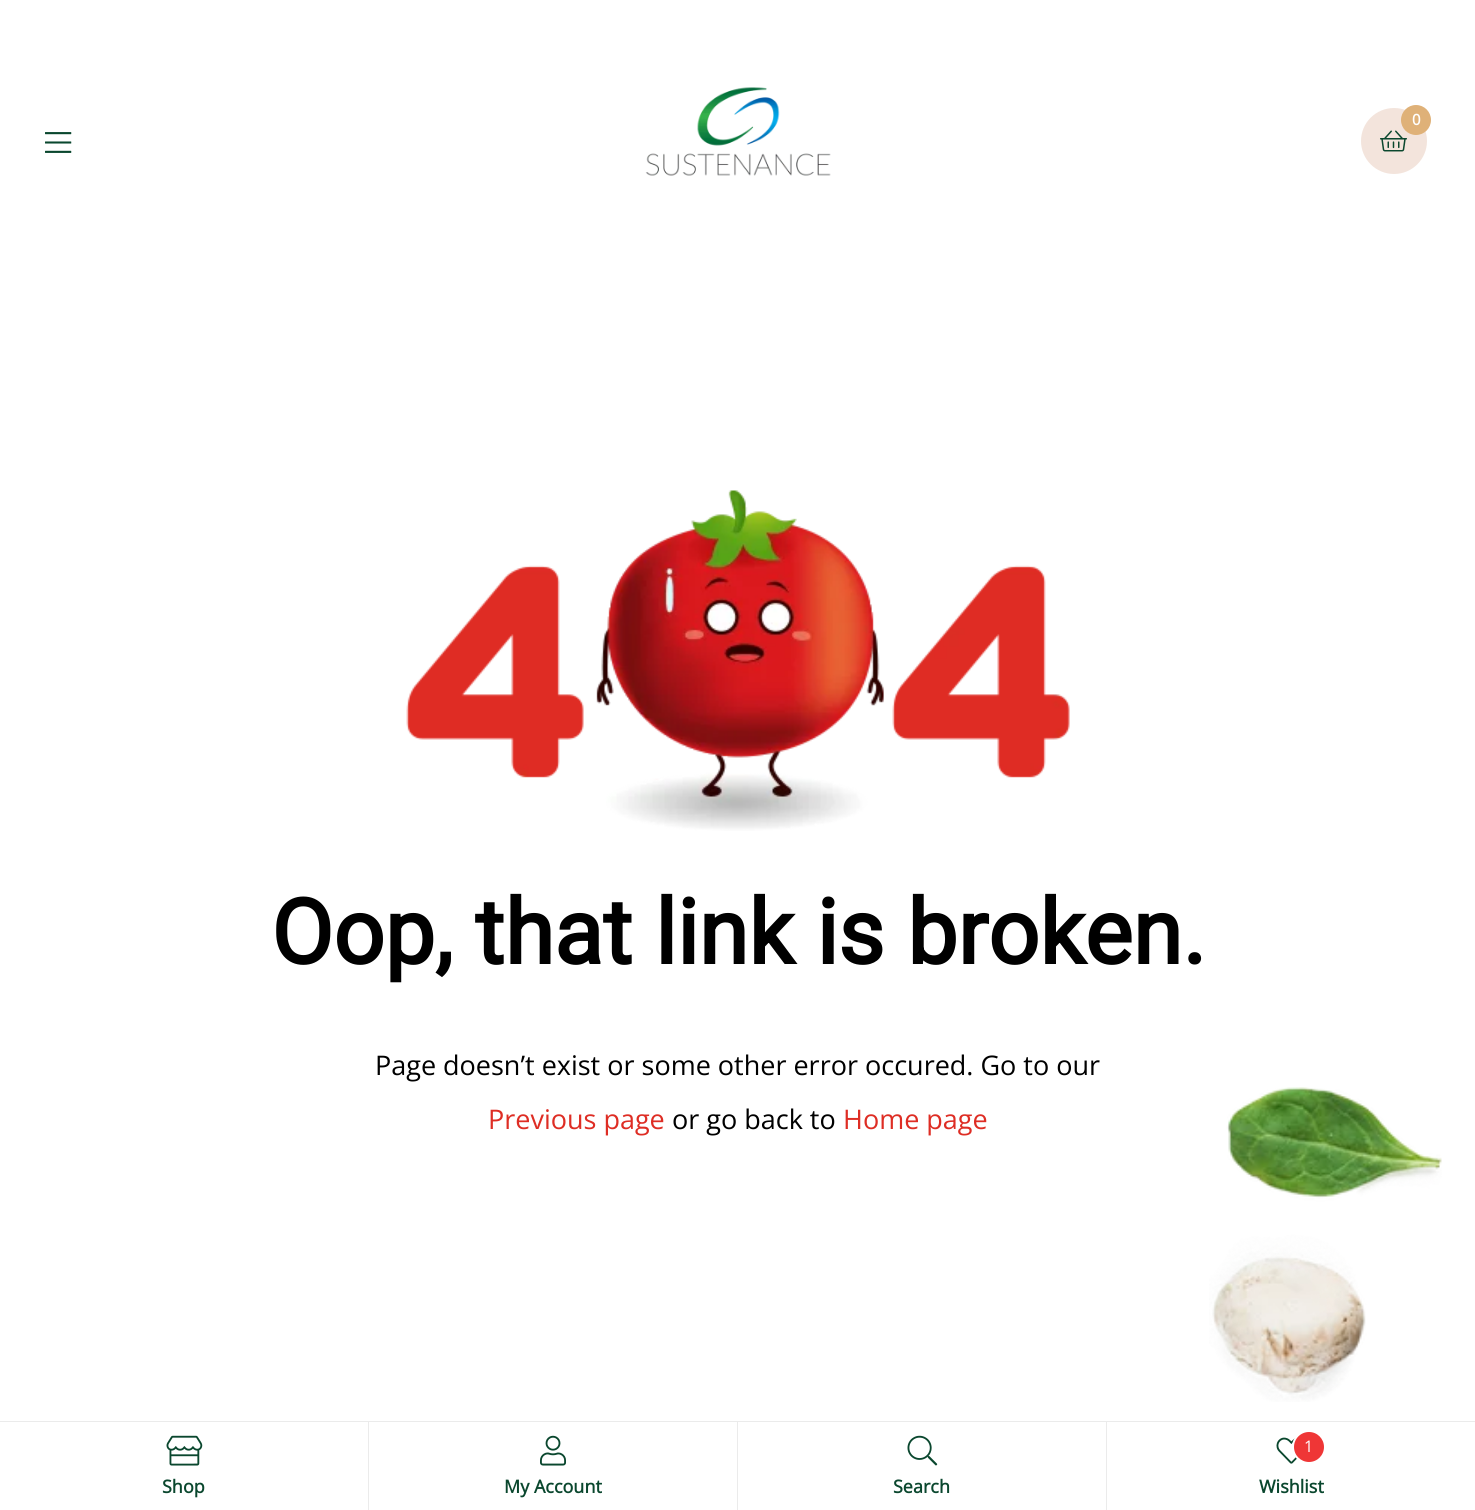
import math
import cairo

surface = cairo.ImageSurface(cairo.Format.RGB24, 1475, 1510)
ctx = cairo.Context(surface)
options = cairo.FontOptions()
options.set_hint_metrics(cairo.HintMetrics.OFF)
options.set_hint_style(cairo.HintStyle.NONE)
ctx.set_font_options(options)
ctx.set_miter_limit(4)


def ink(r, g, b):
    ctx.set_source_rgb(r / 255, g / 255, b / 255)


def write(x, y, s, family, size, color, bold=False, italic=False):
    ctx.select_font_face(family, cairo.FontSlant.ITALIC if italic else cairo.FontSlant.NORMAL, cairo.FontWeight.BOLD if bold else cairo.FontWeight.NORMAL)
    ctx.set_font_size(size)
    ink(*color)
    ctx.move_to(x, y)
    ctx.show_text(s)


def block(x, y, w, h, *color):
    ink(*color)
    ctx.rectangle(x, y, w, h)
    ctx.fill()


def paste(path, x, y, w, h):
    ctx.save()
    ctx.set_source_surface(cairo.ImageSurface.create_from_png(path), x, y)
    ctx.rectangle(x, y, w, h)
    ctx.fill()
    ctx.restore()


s1 = dict(family="Open Sans", size=15, color=(255, 255, 255), bold=True)
s2 = dict(family="Roboto", size=90, color=(0, 0, 0), bold=True)
s3 = dict(family="Open Sans", size=27, color=(0, 0, 0))
s4 = dict(family="Open Sans", size=27, color=(222, 45, 36))
s5 = dict(family="Open Sans", size=18, color=(10, 71, 46), bold=True)
s6 = dict(family="Open Sans", size=16, color=(255, 255, 255))

ink(255, 255, 255)
ctx.paint()
paste("pic1.png", 645, 87, 186, 89)
ink(243, 228, 220)
ctx.arc(1394, 141, 33, 0, 2 * math.pi)
ctx.fill()
paste("pic2.png", 1380, 130, 27, 22)
ink(223, 177, 120)
ctx.arc(1416, 120, 15, 0, 2 * math.pi)
ctx.fill()
write(1412, 125, "0", **s1)
paste("pic3.png", 45, 132, 27, 21)
paste("pic4.png", 1209, 1087, 233, 315)
paste("pic5.png", 406, 490, 664, 341)
write(271, 964, "Oop, that link is broken.", **s2)
write(375, 1075, "Page doesn’t exist or some other error occured. Go to our", **s3)
write(488, 1129, "Previous page", **s4)
write(672, 1129, "or go back to", **s3)
write(843, 1129, "Home page", **s4)
block(0, 1421, 1475, 1, 235, 235, 235)
block(368, 1422, 1, 88, 235, 235, 235)
paste("pic6.png", 166, 1435, 37, 31)
write(162, 1493, "Shop", **s5)
block(737, 1422, 1, 88, 235, 235, 235)
paste("pic7.png", 540, 1435, 26, 31)
write(504, 1493, "My Account", **s5)
block(1106, 1422, 1, 88, 235, 235, 235)
paste("pic8.png", 907, 1435, 31, 31)
write(893, 1493, "Search", **s5)
paste("pic9.png", 1276, 1437, 21, 27)
ink(239, 54, 54)
ctx.arc(1309, 1447, 16, 0, 2 * math.pi)
ctx.fill_preserve()
ink(255, 255, 255)
ctx.stroke()
write(1304, 1452, "1", **s6)
write(1259, 1493, "Wishlist", **s5)
surface.write_to_png("screenshot.png")
